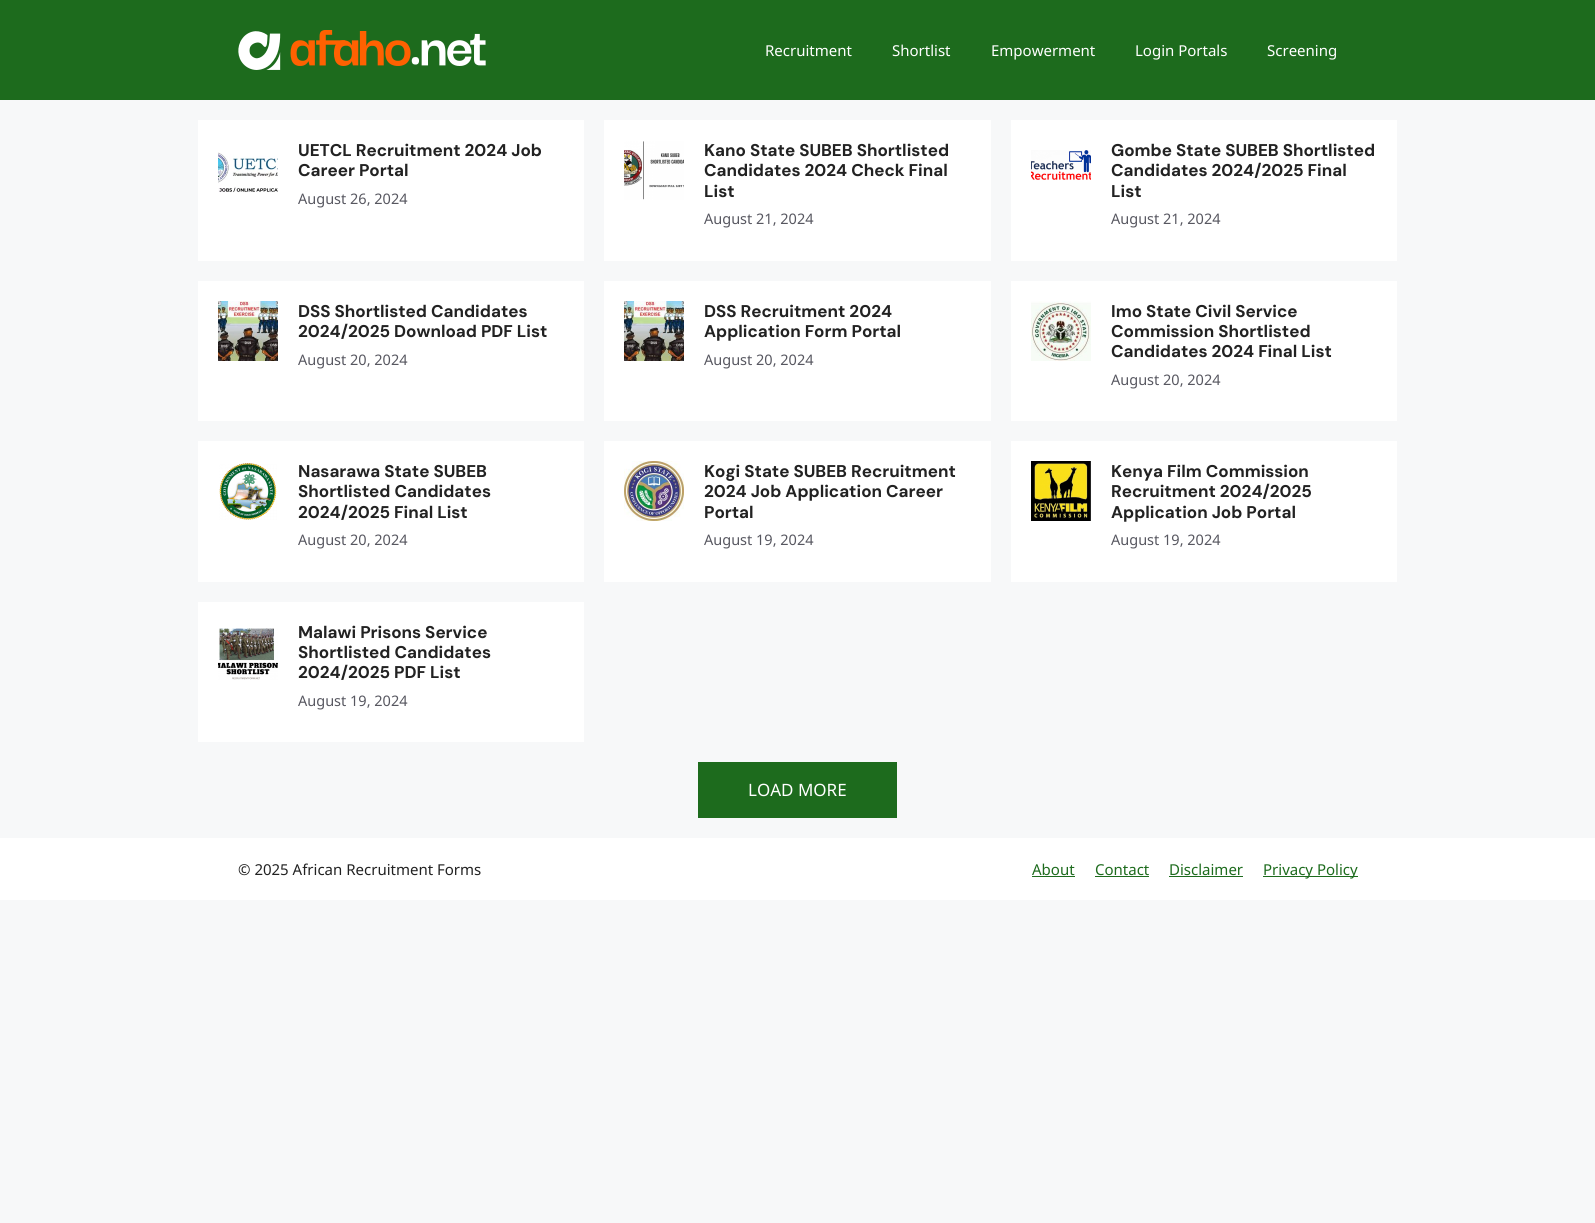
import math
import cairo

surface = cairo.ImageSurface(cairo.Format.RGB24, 1595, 1223)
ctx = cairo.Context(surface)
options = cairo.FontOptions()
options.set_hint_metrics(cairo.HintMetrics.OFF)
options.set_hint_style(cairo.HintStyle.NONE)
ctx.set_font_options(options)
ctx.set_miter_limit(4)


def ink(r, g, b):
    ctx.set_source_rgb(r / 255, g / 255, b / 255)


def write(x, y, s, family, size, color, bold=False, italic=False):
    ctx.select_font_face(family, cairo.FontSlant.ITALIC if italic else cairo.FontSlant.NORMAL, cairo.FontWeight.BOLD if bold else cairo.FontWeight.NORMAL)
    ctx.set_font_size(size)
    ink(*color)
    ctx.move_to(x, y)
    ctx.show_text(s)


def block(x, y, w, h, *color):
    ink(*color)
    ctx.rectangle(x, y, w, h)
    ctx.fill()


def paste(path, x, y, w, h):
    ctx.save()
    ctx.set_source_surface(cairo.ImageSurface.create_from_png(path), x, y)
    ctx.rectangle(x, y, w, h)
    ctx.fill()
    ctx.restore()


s1 = dict(family="Noto Sans", size=15, color=(255, 255, 255))
s2 = dict(family="DM Sans", size=17, color=(34, 34, 34), bold=True)
s3 = dict(family="Noto Sans", size=14.5, color=(87, 87, 96))
s4 = dict(family="Noto Sans", size=17, color=(255, 255, 255))
s5 = dict(family="Noto Sans", size=15, color=(34, 34, 34))
s6 = dict(family="Noto Sans", size=15, color=(29, 107, 29))

ink(247, 248, 249)
ctx.paint()
block(0, 0, 1595, 100, 29, 107, 29)
paste("pic1.png", 238, 30, 248, 40)
write(765, 56, "Recruitment", **s1)
write(892, 56, "Shortlist", **s1)
write(991, 56, "Empowerment", **s1)
write(1135, 56, "Login Portals", **s1)
write(1267, 56, "Screening", **s1)
block(198, 120, 386, 141, 255, 255, 255)
paste("pic2.png", 218, 152, 60, 41)
write(298, 156, "UETCL Recruitment 2024 Job", **s2)
write(298, 176, "Career Portal", **s2)
write(298, 204, "August 26, 2024", **s3)
block(604, 120, 387, 141, 255, 255, 255)
paste("pic3.png", 624, 141, 60, 59)
write(704, 156, "Kano State SUBEB Shortlisted", **s2)
write(704, 176, "Candidates 2024 Check Final", **s2)
write(704, 197, "List", **s2)
write(704, 224, "August 21, 2024", **s3)
block(1011, 120, 386, 141, 255, 255, 255)
paste("pic4.png", 1031, 150, 60, 30)
write(1111, 156, "Gombe State SUBEB Shortlisted", **s2)
write(1111, 176, "Candidates 2024/2025 Final", **s2)
write(1111, 197, "List", **s2)
write(1111, 224, "August 21, 2024", **s3)
block(198, 281, 386, 140, 255, 255, 255)
paste("pic5.png", 218, 301, 60, 60)
write(298, 317, "DSS Shortlisted Candidates", **s2)
write(298, 337, "2024/2025 Download PDF List", **s2)
write(298, 365, "August 20, 2024", **s3)
block(604, 281, 387, 140, 255, 255, 255)
paste("pic5.png", 624, 301, 60, 60)
write(704, 317, "DSS Recruitment 2024", **s2)
write(704, 337, "Application Form Portal", **s2)
write(704, 365, "August 20, 2024", **s3)
block(1011, 281, 386, 140, 255, 255, 255)
paste("pic6.png", 1031, 301, 60, 60)
write(1111, 317, "Imo State Civil Service", **s2)
write(1111, 337, "Commission Shortlisted", **s2)
write(1111, 357, "Candidates 2024 Final List", **s2)
write(1111, 385, "August 20, 2024", **s3)
block(198, 441, 386, 141, 255, 255, 255)
paste("pic7.png", 219, 463, 58, 57)
write(298, 477, "Nasarawa State SUBEB", **s2)
write(298, 497, "Shortlisted Candidates", **s2)
write(298, 518, "2024/2025 Final List", **s2)
write(298, 545, "August 20, 2024", **s3)
block(604, 441, 387, 141, 255, 255, 255)
paste("pic8.png", 624, 461, 60, 60)
write(704, 477, "Kogi State SUBEB Recruitment", **s2)
write(704, 497, "2024 Job Application Career", **s2)
write(704, 518, "Portal", **s2)
write(704, 545, "August 19, 2024", **s3)
block(1011, 441, 386, 141, 255, 255, 255)
paste("pic9.png", 1031, 461, 60, 60)
write(1111, 477, "Kenya Film Commission", **s2)
write(1111, 497, "Recruitment 2024/2025", **s2)
write(1111, 518, "Application Job Portal", **s2)
write(1111, 545, "August 19, 2024", **s3)
block(198, 602, 386, 140, 255, 255, 255)
paste("pic10.png", 218, 628, 60, 52)
write(298, 638, "Malawi Prisons Service", **s2)
write(298, 658, "Shortlisted Candidates", **s2)
write(298, 678, "2024/2025 PDF List", **s2)
write(298, 706, "August 19, 2024", **s3)
block(698, 762, 199, 56, 29, 107, 29)
write(748, 796, "LOAD MORE", **s4)
block(0, 838, 1595, 62, 255, 255, 255)
write(238, 875, "© 2025 African Recruitment Forms", **s5)
write(1032, 875, "About", **s6)
block(1032, 876, 43, 1, 29, 107, 29)
write(1095, 875, "Contact", **s6)
block(1095, 876, 54, 1, 29, 107, 29)
write(1169, 875, "Disclaimer", **s6)
block(1169, 876, 74, 1, 29, 107, 29)
block(1263, 876, 95, 1, 29, 107, 29)
write(1263, 875, "Privacy Policy", **s6)
surface.write_to_png("screenshot.png")
